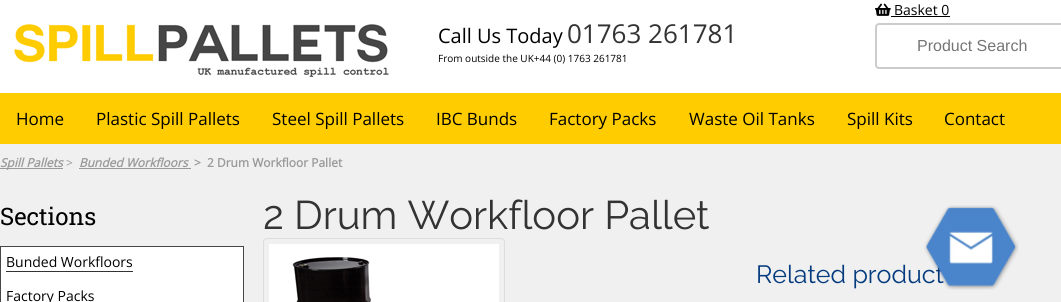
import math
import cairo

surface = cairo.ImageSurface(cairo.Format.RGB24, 1061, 302)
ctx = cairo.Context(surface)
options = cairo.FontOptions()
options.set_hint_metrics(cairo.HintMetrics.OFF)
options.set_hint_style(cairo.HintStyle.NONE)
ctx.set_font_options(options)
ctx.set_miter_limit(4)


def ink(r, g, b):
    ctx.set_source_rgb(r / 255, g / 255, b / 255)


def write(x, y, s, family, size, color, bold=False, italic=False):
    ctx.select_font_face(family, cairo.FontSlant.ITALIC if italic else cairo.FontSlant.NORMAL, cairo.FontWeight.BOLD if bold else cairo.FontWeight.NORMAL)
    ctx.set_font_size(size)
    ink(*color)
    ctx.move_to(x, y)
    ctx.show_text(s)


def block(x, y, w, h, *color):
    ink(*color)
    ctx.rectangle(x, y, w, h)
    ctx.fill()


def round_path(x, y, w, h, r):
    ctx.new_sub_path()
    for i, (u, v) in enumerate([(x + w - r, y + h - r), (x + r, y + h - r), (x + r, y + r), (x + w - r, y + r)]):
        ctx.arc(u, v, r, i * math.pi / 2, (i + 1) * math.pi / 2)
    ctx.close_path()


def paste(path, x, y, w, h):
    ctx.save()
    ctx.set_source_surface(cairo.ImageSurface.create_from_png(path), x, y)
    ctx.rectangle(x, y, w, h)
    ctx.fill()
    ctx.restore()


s1 = dict(family="Open Sans", size=20, color=(0, 0, 0))
s2 = dict(family="Open Sans", size=26, color=(51, 51, 51))
s3 = dict(family="Open Sans", size=10, color=(0, 0, 0))
s4 = dict(family="Open Sans", size=14, color=(0, 0, 0))
s5 = dict(family="Liberation Sans", size=16, color=(117, 117, 117))
s6 = dict(family="Open Sans", size=17, color=(0, 0, 0))
s7 = dict(family="Open Sans", size=12, color=(153, 153, 153), bold=True, italic=True)
s8 = dict(family="Open Sans", size=12, color=(153, 153, 153))
s9 = dict(family="Open Sans", size=12, color=(153, 153, 153), bold=True)
s10 = dict(family="Roboto Slab", size=24, color=(0, 0, 0))
s11 = dict(family="Raleway Thin", size=40, color=(51, 51, 51))
s12 = dict(family="Raleway Thin", size=25, color=(4, 59, 126))

ink(255, 255, 255)
ctx.paint()
paste("pic1.png", 14, 24, 375, 53)
write(438, 43, "Call Us Today", **s1)
write(567, 43, "01763 261781", **s2)
write(438, 62, "From outside the UK+44 (0) 1763 261781", **s3)
paste("pic2.png", 875, 3, 16, 13)
write(894, 15, "Basket 0", **s4)
block(891, 16, 59, 1, 0, 0, 0)
round_path(876, 24, 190, 44, 3)
ink(204, 204, 204)
ctx.stroke()
write(917, 51, "Product Search", **s5)
block(0, 93, 1061, 51, 255, 204, 0)
write(16, 125, "Home", **s6)
write(96, 125, "Plastic Spill Pallets", **s6)
write(272, 125, "Steel Spill Pallets", **s6)
write(436, 125, "IBC Bunds", **s6)
write(549, 125, "Factory Packs", **s6)
write(689, 125, "Waste Oil Tanks", **s6)
write(847, 125, "Spill Kits", **s6)
write(944, 125, "Contact", **s6)
block(0, 144, 1061, 158, 240, 240, 240)
block(0, 168, 63, 1, 153, 153, 153)
write(0, 167, "Spill Pallets", **s7)
write(66, 167, ">", **s8)
write(79, 167, "Bunded Workfloors", **s7)
block(79, 168, 112, 1, 153, 153, 153)
write(194, 167, ">", **s9)
write(207, 167, "2 Drum Workfloor Pallet", **s9)
write(0, 225, "Sections", **s10)
ink(255, 255, 255)
ctx.rectangle(0.5, 246.5, 243, 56)
ctx.fill_preserve()
ink(70, 70, 70)
ctx.set_line_width(1)
ctx.stroke()
write(6, 267, "Bunded Workfloors", **s4)
block(6, 271, 127, 1, 51, 51, 51)
write(6, 301, "Factory Packs", **s4)
write(263, 229, "2 Drum Workfloor Pallet", **s11)
round_path(263.5, 238.5, 241, 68, 3.5)
ink(221, 221, 221)
ctx.stroke()
paste("pic3.png", 269, 244, 230, 58)
write(756, 283, "Related product", **s12)
paste("pic4.png", 924, 205, 95, 85)
surface.write_to_png("screenshot.png")
